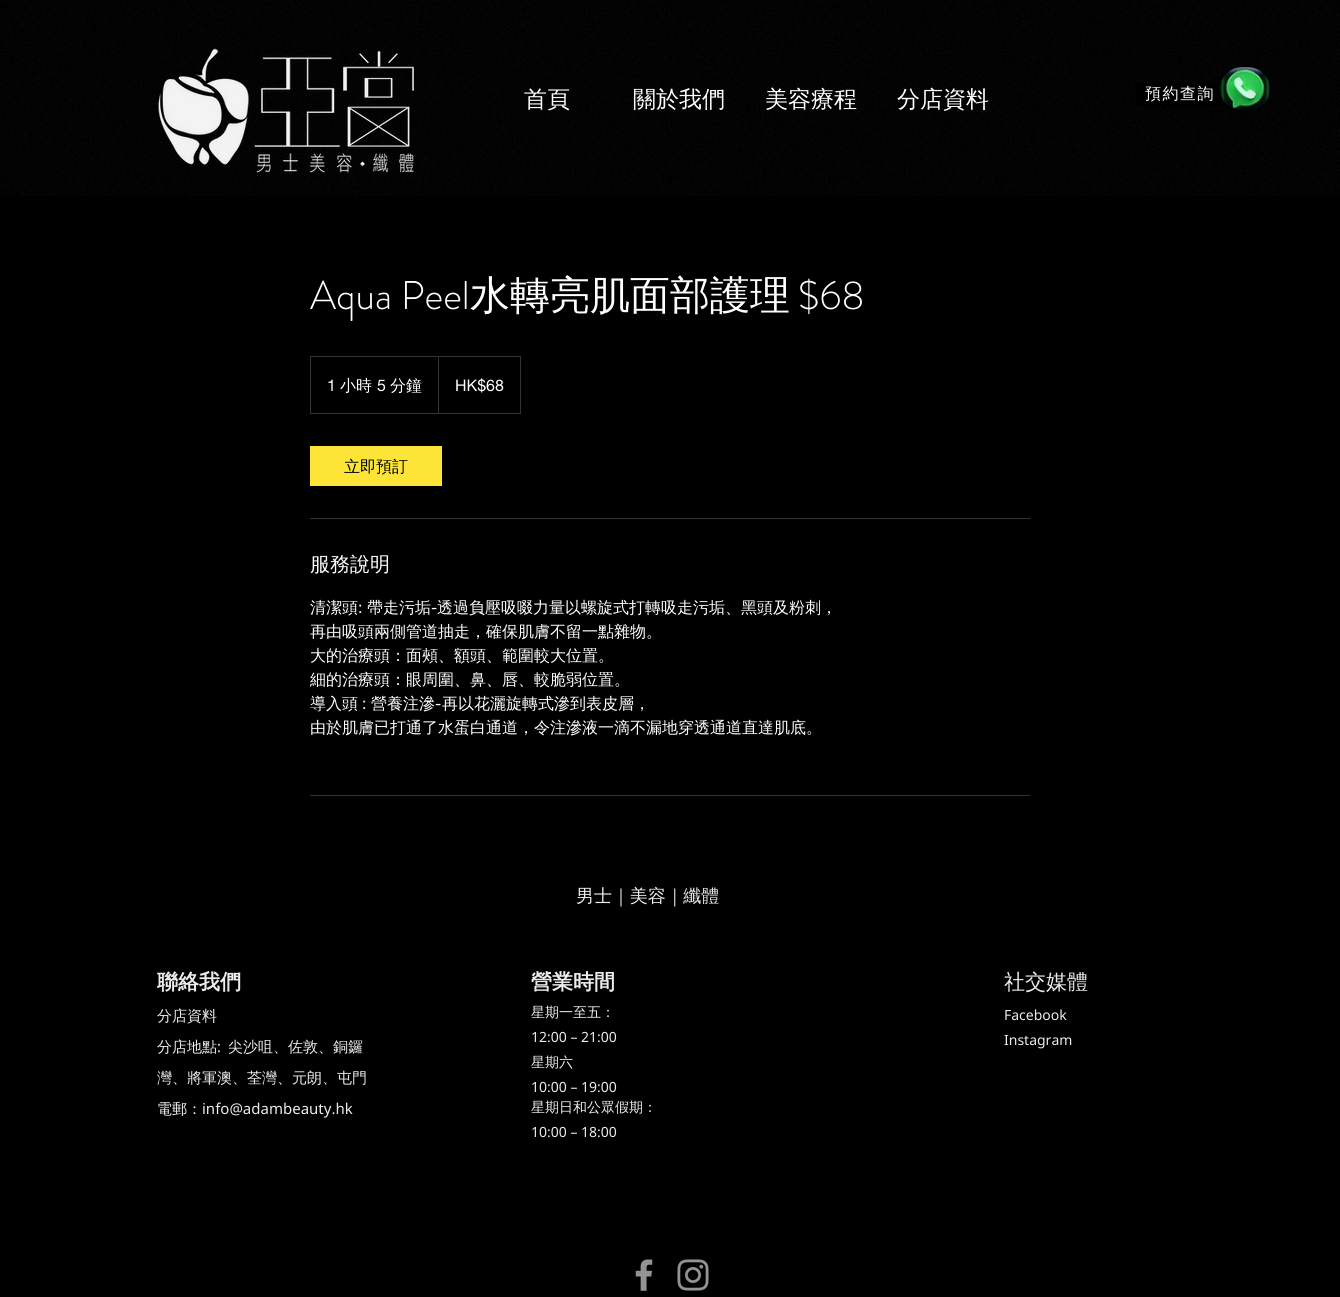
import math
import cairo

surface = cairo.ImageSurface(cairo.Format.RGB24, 1340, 1297)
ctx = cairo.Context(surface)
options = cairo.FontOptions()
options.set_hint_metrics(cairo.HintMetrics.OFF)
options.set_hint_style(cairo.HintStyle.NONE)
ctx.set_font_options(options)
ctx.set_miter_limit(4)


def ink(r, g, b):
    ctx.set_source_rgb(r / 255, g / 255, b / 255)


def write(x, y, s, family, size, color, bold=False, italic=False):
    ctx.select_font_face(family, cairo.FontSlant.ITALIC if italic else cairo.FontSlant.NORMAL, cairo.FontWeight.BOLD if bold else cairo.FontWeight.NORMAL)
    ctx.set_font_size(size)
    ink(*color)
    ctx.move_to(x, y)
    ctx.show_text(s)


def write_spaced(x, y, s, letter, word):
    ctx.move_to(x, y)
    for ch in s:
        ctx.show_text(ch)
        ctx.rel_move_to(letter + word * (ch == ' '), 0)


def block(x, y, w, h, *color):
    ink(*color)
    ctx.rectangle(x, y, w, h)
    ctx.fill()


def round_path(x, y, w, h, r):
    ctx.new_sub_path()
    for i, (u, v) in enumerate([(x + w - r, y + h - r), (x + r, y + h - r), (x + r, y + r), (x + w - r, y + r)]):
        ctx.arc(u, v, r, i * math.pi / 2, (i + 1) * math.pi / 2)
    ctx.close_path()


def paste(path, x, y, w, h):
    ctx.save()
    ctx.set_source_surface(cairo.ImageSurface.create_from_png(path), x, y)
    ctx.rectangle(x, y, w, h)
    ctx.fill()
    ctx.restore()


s1 = dict(family="WenQuanYi Zen Hei Medium", size=23, color=(255, 255, 255))
s2 = dict(family="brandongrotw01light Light", size=40, color=(255, 255, 255))
s3 = dict(family="WenQuanYi Zen Hei Medium", size=40, color=(255, 255, 255))
s4 = dict(family="helvetica neue", size=16, color=(255, 255, 255))
s5 = dict(family="WenQuanYi Zen Hei Medium", size=16, color=(255, 255, 255))
s6 = dict(family="WenQuanYi Zen Hei Medium", size=16, color=(0, 0, 0))
s7 = dict(family="WenQuanYi Zen Hei Medium", size=20, color=(255, 255, 255))
s8 = dict(family="WenQuanYi Zen Hei Medium", size=18, color=(236, 236, 236))
s9 = dict(family="WenQuanYi Zen Hei", size=21, color=(236, 236, 236), bold=True)
s10 = dict(family="WenQuanYi Zen Hei Medium", size=15, color=(236, 236, 236))
s11 = dict(family="Noto Sans", size=15, color=(236, 236, 236))
s12 = dict(family="WenQuanYi Zen Hei Medium", size=14, color=(236, 236, 236))
s13 = dict(family="Noto Sans", size=14, color=(236, 236, 236))
s14 = dict(family="WenQuanYi Zen Hei Medium", size=21, color=(236, 236, 236))

ink(0, 0, 0)
ctx.paint()
paste("pic1.png", 0, 0, 1340, 196)
paste("pic2.png", 158, 48, 256, 126)
write(524, 107, "首頁", **s1)
write(633, 107, "關於我們", **s1)
write(765, 107, "美容療程", **s1)
write(897, 107, "分店資料", **s1)
block(1136, 83, 89, 23, 0, 0, 0)
ctx.set_font_size(16)
ink(255, 255, 255)
write_spaced(1145, 99, "預約查詢", 1.5, 0)
ink(0, 0, 0)
round_path(1218, 65, 54, 48, 24)
ctx.fill()
paste("pic3.png", 1220, 67, 50, 44)
write(310, 309, "Aqua Peel", **s2)
write(470, 309, "水轉亮肌面部護理", **s3)
write(798, 309, "$68", **s2)
ctx.rectangle(310.5, 356.5, 210, 57)
ink(51, 51, 51)
ctx.set_line_width(1)
ctx.stroke()
write(327, 391, "1", **s4)
write(340, 391, "小時", **s5)
write(377, 391, "5", **s4)
write(390, 391, "分鐘", **s5)
ink(51, 51, 51)
ctx.new_path()
ctx.move_to(438, 413)
ctx.line_to(438, 356)
ctx.line_to(439, 357)
ctx.line_to(439, 413)
ctx.close_path()
ctx.fill()
write(455, 391, "HK$68", **s4)
block(310, 446, 132, 40, 253, 229, 56)
write(344, 472, "立即預訂", **s6)
block(310, 518, 720, 1, 51, 51, 51)
write(310, 571, "服務說明", **s7)
write(310, 613, "清潔頭", **s5)
write(358, 613, ":", **s4)
write(367, 613, "帶走污垢", **s5)
write(431, 613, "-", **s4)
write(437, 613, "透過負壓吸啜力量以螺旋式打轉吸走污垢、黑頭及粉刺，", **s5)
write(310, 637, "再由吸頭兩側管道抽走，確保肌膚不留一點雜物。", **s5)
write(310, 661, "大的治療頭：面頰、額頭、範圍較大位置。", **s5)
write(310, 685, "細的治療頭：眼周圍、鼻、唇、較脆弱位置。", **s5)
write(310, 709, "導入頭", **s5)
write(362, 709, ":", **s4)
write(371, 709, "營養注滲", **s5)
write(435, 709, "-", **s4)
write(442, 709, "再以花灑旋轉式滲到表皮層，", **s5)
write(310, 733, "由於肌膚已打通了水蛋白通道，令注滲液一滴不漏地穿透通道直達肌底。", **s5)
block(310, 795, 720, 1, 51, 51, 51)
write(576, 902, "男士｜美容｜纖體", **s8)
write(157, 989, "聯絡我們", **s9)
write(157, 1021, "分店資料", **s10)
write(157, 1052, "分店地點", **s10)
write(217, 1052, ":", **s11)
write(228, 1052, "尖沙咀、佐敦、銅鑼", **s10)
write(157, 1083, "灣、將軍澳、荃灣、元朗、屯門", **s10)
write(157, 1114, "電郵：", **s10)
write(202, 1114, "info@adambeauty.hk", **s11)
write(531, 989, "營業時間", **s9)
write(531, 1017, "星期一至五：", **s12)
write(531, 1042, "12:00 – 21:00", **s13)
write(531, 1067, "星期六", **s12)
write(531, 1092, "10:00 – 19:00", **s13)
write(531, 1112, "星期日和公眾假期：", **s12)
write(531, 1137, "10:00 – 18:00", **s13)
write(1004, 989, "社交媒體", **s14)
write(1004, 1020, "Facebook", **s13)
write(1004, 1045, "Instagram", **s13)
paste("pic4.png", 635, 1259, 18, 32)
paste("pic5.png", 677, 1259, 32, 32)
surface.write_to_png("screenshot.png")
